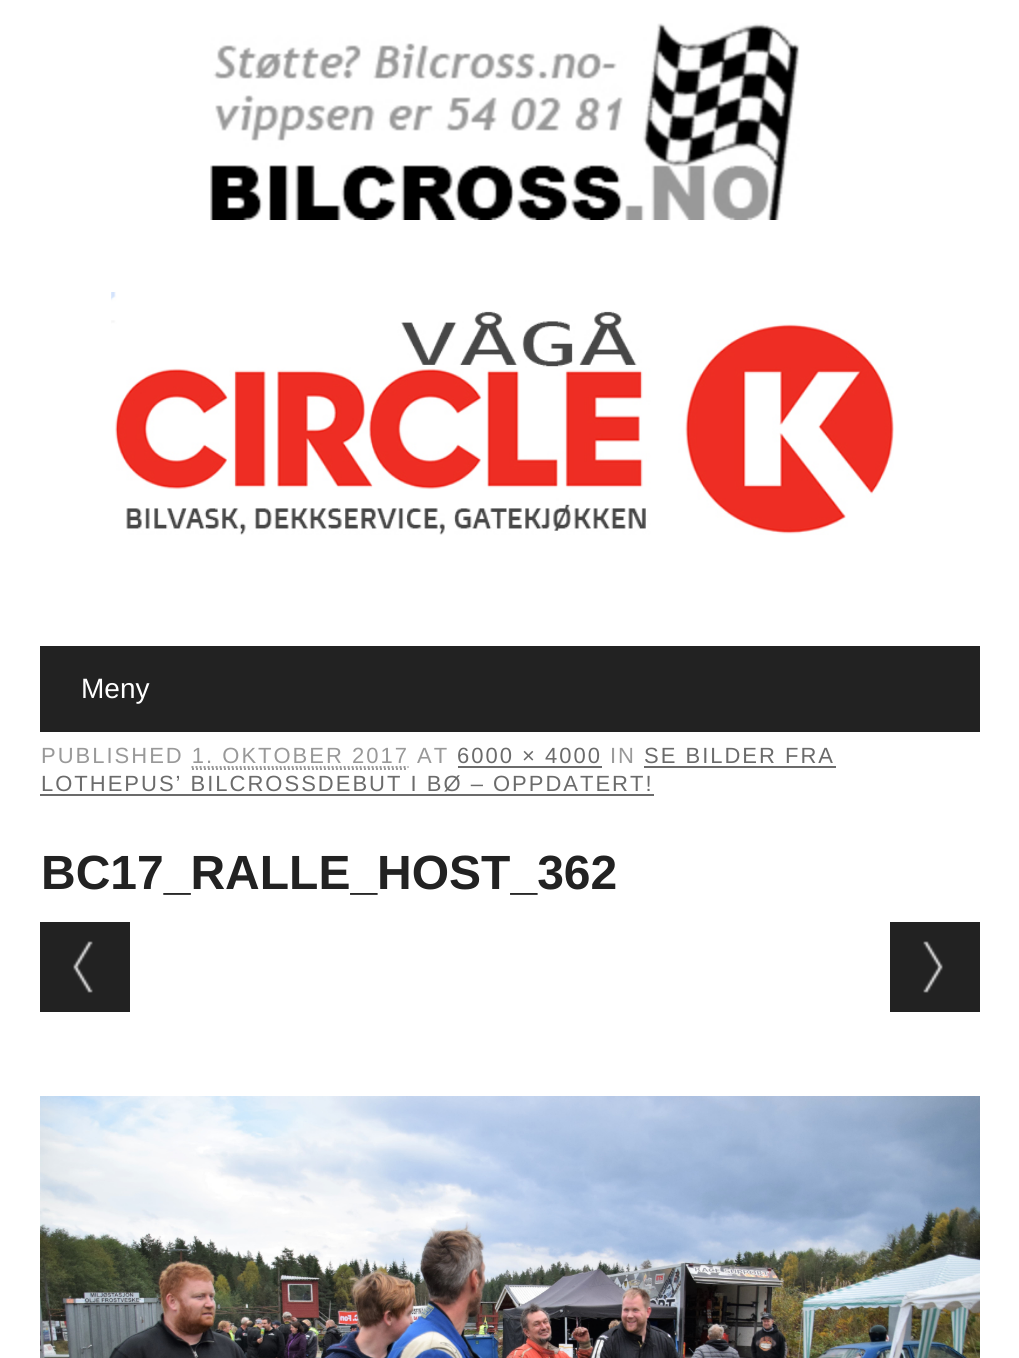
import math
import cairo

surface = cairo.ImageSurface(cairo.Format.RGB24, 1019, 1358)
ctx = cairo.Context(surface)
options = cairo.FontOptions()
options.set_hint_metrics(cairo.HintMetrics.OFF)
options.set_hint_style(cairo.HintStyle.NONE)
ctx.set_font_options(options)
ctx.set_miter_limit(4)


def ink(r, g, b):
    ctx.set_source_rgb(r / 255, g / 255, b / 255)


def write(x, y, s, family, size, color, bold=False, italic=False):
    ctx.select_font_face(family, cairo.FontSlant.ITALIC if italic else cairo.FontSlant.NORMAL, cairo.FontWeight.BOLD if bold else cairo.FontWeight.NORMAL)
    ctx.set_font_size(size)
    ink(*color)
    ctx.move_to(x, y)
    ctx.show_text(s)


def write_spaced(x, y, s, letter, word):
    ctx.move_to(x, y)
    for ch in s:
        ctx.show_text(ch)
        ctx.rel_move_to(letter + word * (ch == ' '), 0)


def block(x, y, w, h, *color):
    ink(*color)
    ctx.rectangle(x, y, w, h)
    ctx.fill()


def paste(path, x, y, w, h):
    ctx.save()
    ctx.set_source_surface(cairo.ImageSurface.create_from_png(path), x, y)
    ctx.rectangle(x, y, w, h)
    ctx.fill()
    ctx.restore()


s1 = dict(family="Liberation Sans", size=28, color=(255, 255, 255))
s2 = dict(family="Liberation Sans", size=48, color=(34, 34, 34), bold=True)

ink(255, 255, 255)
ctx.paint()
paste("pic1.png", 210, 23, 590, 197)
paste("pic2.png", 111, 292, 783, 243)
block(40, 646, 940, 86, 34, 34, 34)
write(81, 698, "Meny", **s1)
ctx.set_font_size(22)
ink(153, 153, 153)
write_spaced(41, 763, "PUBLISHED 1. OKTOBER 2017 AT", 2, 0)
ink(107, 107, 107)
write_spaced(457, 763, "6000 × 4000", 2, 0)
block(458, 766, 144, 2, 107, 107, 107)
ink(153, 153, 153)
write_spaced(610, 763, "IN", 2, 0)
ink(107, 107, 107)
write_spaced(644, 763, "SE BILDER FRA", 2, 0)
block(644, 766, 192, 2, 107, 107, 107)
ctx.new_path()
ctx.move_to(191.5, 767)
ctx.line_to(408.5, 767)
ink(153, 153, 153)
ctx.set_dash([2, 2])
ctx.stroke()
ctx.new_path()
ctx.move_to(192, 769)
ctx.line_to(408, 769)
ctx.stroke()
ink(107, 107, 107)
write_spaced(41, 791, "LOTHEPUS’ BILCROSSDEBUT I BØ – OPPDATERT!", 2, 0)
block(40, 794, 614, 2, 107, 107, 107)
write(41, 889, "BC17_RALLE_HOST_362", **s2)
block(40, 922, 90, 90, 34, 34, 34)
paste("pic3.png", 73, 941, 20, 52)
block(890, 922, 90, 90, 34, 34, 34)
paste("pic4.png", 923, 941, 20, 52)
paste("pic5.png", 40, 1096, 940, 262)
surface.write_to_png("screenshot.png")
